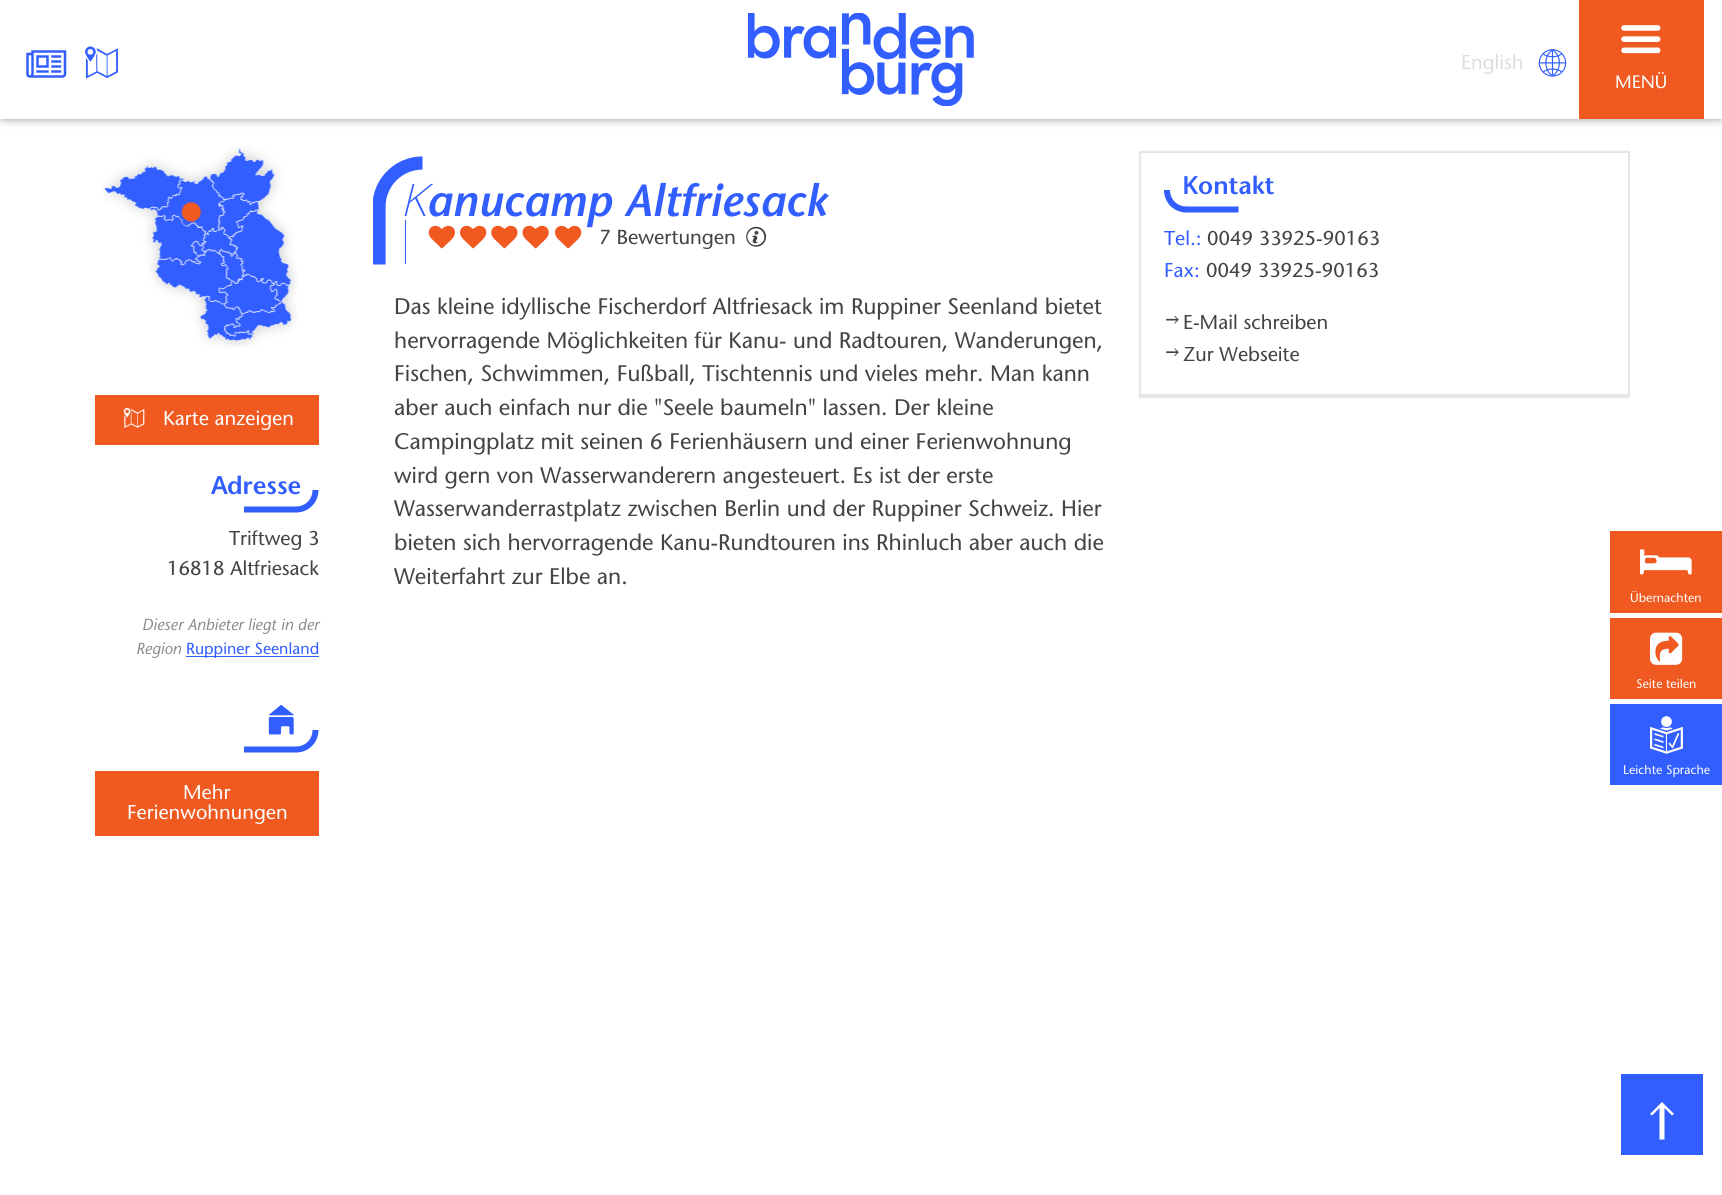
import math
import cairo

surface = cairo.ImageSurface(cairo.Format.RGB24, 1722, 1195)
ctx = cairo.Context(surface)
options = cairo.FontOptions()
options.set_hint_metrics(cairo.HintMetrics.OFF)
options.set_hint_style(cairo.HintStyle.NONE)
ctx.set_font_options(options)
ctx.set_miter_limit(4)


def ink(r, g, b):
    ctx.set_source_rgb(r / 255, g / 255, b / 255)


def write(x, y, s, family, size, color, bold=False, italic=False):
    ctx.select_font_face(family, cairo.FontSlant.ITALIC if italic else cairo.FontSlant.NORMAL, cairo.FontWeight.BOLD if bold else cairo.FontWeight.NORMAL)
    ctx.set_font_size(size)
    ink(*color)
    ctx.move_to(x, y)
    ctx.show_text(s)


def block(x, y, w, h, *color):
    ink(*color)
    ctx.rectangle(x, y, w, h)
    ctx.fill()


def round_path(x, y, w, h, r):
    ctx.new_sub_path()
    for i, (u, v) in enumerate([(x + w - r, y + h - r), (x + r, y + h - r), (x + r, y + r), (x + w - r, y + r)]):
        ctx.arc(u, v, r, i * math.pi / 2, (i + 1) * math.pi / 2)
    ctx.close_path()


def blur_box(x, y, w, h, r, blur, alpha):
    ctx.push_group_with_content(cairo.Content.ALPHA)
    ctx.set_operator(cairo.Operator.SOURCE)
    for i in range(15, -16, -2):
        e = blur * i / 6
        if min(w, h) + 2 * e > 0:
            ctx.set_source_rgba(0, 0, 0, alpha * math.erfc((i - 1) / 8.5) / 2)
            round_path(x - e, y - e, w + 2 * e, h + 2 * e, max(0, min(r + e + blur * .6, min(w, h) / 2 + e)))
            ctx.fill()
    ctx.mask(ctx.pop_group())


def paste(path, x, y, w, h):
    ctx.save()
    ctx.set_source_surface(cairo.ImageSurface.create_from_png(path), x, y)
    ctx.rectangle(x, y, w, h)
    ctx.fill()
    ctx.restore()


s1 = dict(family="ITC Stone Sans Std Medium", size=20, color=(222, 222, 222))
s2 = dict(family="ITC Stone Sans Std Medium", size=18, color=(254, 254, 254))
s3 = dict(family="ITC Stone Sans Std Medium", size=20, color=(254, 254, 254))
s4 = dict(family="Noto Sans SemiBold", size=25, color=(50, 94, 255))
s5 = dict(family="ITC Stone Sans Std SemiBold", size=25, color=(50, 94, 255))
s6 = dict(family="ITC Stone Sans Std Medium", size=20, color=(68, 68, 68))
s7 = dict(family="ITC Stone Sans Std Medium", size=16, color=(138, 138, 138), italic=True)
s8 = dict(family="ITC Stone Sans Std Medium", size=16, color=(50, 94, 255))
s9 = dict(family="Noto Sans ExtraLight", size=45, color=(50, 94, 255), italic=True)
s10 = dict(family="ITC Stone Sans Std SemiBold", size=45, color=(50, 94, 255), italic=True)
s11 = dict(family="ITC Stone Sans Std Medium", size=20.25, color=(68, 68, 68))
s12 = dict(family="ITC Stone Sans Std Medium", size=22.5, color=(68, 68, 68))
s13 = dict(family="ITC Stone Sans Std Medium", size=20, color=(50, 94, 255))
s14 = dict(family="ITC Stone Sans Std Medium", size=12.5, color=(254, 254, 254))

ink(255, 255, 255)
ctx.paint()
ink(68, 68, 68)
blur_box(3, 3, 1717, 113, 0, 5.5, 1)
block(0, 0, 1722, 119, 255, 255, 255)
paste("pic1.png", 26, 50, 41, 28)
paste("pic2.png", 85, 46, 33, 33)
paste("pic3.png", 748, 13, 226, 93)
write(1461, 69, "English", **s1)
paste("pic4.png", 1538, 49, 29, 28)
block(1579, 0, 125, 119, 240, 89, 31)
paste("pic5.png", 1621, 25, 40, 29)
write(1615, 88, "MENÜ", **s2)
paste("pic6.png", 103, 146, 194, 202)
block(95, 395, 224, 50, 240, 89, 31)
paste("pic7.png", 123, 408, 22, 20)
write(163, 425, "Karte anzeigen", **s3)
write(211, 494, "A", **s4)
write(227, 494, "dresse", **s5)
ctx.new_path()
ctx.move_to(315.5, 490)
ctx.curve_to(315.5, 501, 307, 509.5, 296, 509.5)
ctx.set_line_width(6)
ctx.stroke()
ctx.new_path()
ctx.move_to(296.5, 509.5)
ctx.line_to(244, 509.5)
ctx.stroke()
write(229, 545, "Triftweg 3", **s6)
write(167, 575, "16818 Altfriesack", **s6)
write(142, 630, "Dieser Anbieter liegt in der", **s7)
write(136, 654, "Region", **s7)
block(186, 656, 133, 1, 50, 94, 255)
write(186, 654, "Ruppiner Seenland", **s8)
paste("pic8.png", 268, 705, 26, 30)
ctx.new_path()
ctx.move_to(315.5, 730)
ctx.curve_to(315.5, 741, 307, 749.5, 296, 749.5)
ctx.stroke()
ctx.new_path()
ctx.move_to(296.5, 749.5)
ctx.line_to(244, 749.5)
ctx.stroke()
block(95, 771, 224, 65, 240, 89, 31)
write(183, 799, "Mehr", **s3)
write(127, 819, "Ferienwohnungen", **s3)
ctx.save()
ctx.rectangle(373, 156, 50, 109)
ctx.clip()
ctx.new_path()
ctx.move_to(422.5, 163)
ctx.curve_to(398.5, 163, 379, 182.5, 379, 206.5)
ink(50, 94, 255)
ctx.set_line_width(13.2)
ctx.stroke()
ctx.new_path()
ctx.move_to(379, 206)
ctx.line_to(379, 264.5)
ctx.stroke()
ctx.restore()
write(400, 216, "K", **s9)
write(426, 216, "anucamp Altfriesack", **s10)
block(405, 220, 1, 44, 50, 94, 255)
paste("pic9.png", 428, 225, 27, 24)
paste("pic10.png", 460, 225, 27, 24)
paste("pic11.png", 491, 225, 27, 24)
paste("pic12.png", 522, 225, 27, 24)
paste("pic10.png", 555, 225, 27, 24)
write(599, 244, "7 Bewertungen", **s11)
paste("pic13.png", 746, 226, 21, 21)
write(394, 314, "Das kleine idyllische Fischerdorf Altfriesack im Ruppiner Seenland bietet", **s12)
write(394, 348, "hervorragende Möglichkeiten für Kanu- und Radtouren, Wanderungen,", **s12)
write(394, 381, "Fischen, Schwimmen, Fußball, Tischtennis und vieles mehr. Man kann", **s12)
write(394, 415, "aber auch einfach nur die \"Seele baumeln\" lassen. Der kleine", **s12)
write(394, 449, "Campingplatz mit seinen 6 Ferienhäusern und einer Ferienwohnung", **s12)
write(394, 483, "wird gern von Wasserwanderern angesteuert. Es ist der erste", **s12)
write(394, 516, "Wasserwanderrastplatz zwischen Berlin und der Ruppiner Schweiz. Hier", **s12)
write(394, 550, "bieten sich hervorragende Kanu-Rundtouren ins Rhinluch aber auch die", **s12)
write(394, 584, "Weiterfahrt zur Elbe an.", **s12)
ctx.save()
ctx.set_fill_rule(cairo.FillRule.EVEN_ODD)
ctx.new_path()
ctx.move_to(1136, 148)
ctx.line_to(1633, 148)
ctx.line_to(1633, 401)
ctx.line_to(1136, 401)
ctx.close_path()
ctx.move_to(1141, 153)
ctx.line_to(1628, 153)
ctx.line_to(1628, 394)
ctx.line_to(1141, 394)
ctx.close_path()
ctx.clip()
ink(222, 222, 222)
blur_box(1139, 151, 491, 247, 0, 0.5, 0.8)
ctx.restore()
write(1182, 194, "K", **s4)
write(1198, 194, "ontakt", **s5)
ctx.new_path()
ctx.move_to(1167, 190)
ctx.curve_to(1167, 201, 1175.5, 209.5, 1186.5, 209.5)
ctx.stroke()
ctx.new_path()
ctx.move_to(1186, 209.5)
ctx.line_to(1238.5, 209.5)
ctx.stroke()
write(1164, 245, "Tel.:", **s13)
write(1207, 245, "0049 33925-90163", **s6)
write(1164, 277, "Fax:", **s13)
write(1206, 277, "0049 33925-90163", **s6)
paste("pic14.png", 1166, 315, 13, 9)
write(1183, 329, "E-Mail schreiben", **s6)
paste("pic15.png", 1166, 348, 13, 9)
write(1183, 361, "Zur Webseite", **s6)
block(1610, 531, 112, 82, 240, 89, 31)
paste("pic16.png", 1640, 549, 52, 26)
write(1630, 602, "Übernachten", **s14)
block(1610, 618, 112, 81, 240, 89, 31)
paste("pic17.png", 1650, 632, 33, 33)
write(1636, 688, "Seite teilen", **s14)
block(1610, 704, 112, 81, 50, 94, 255)
paste("pic18.png", 1650, 716, 33, 38)
write(1623, 774, "Leichte Sprache", **s14)
block(1621, 1074, 82, 81, 50, 94, 255)
ink(254, 254, 254)
ctx.new_path()
ctx.move_to(1664.5, 1139.5)
ctx.line_to(1664.5, 1108)
ctx.line_to(1672, 1115.5)
ctx.line_to(1674, 1114)
ctx.line_to(1662, 1102)
ctx.line_to(1650, 1114)
ctx.line_to(1652, 1115.5)
ctx.line_to(1659.5, 1108)
ctx.line_to(1659.5, 1139.5)
ctx.close_path()
ctx.fill()
surface.write_to_png("screenshot.png")
